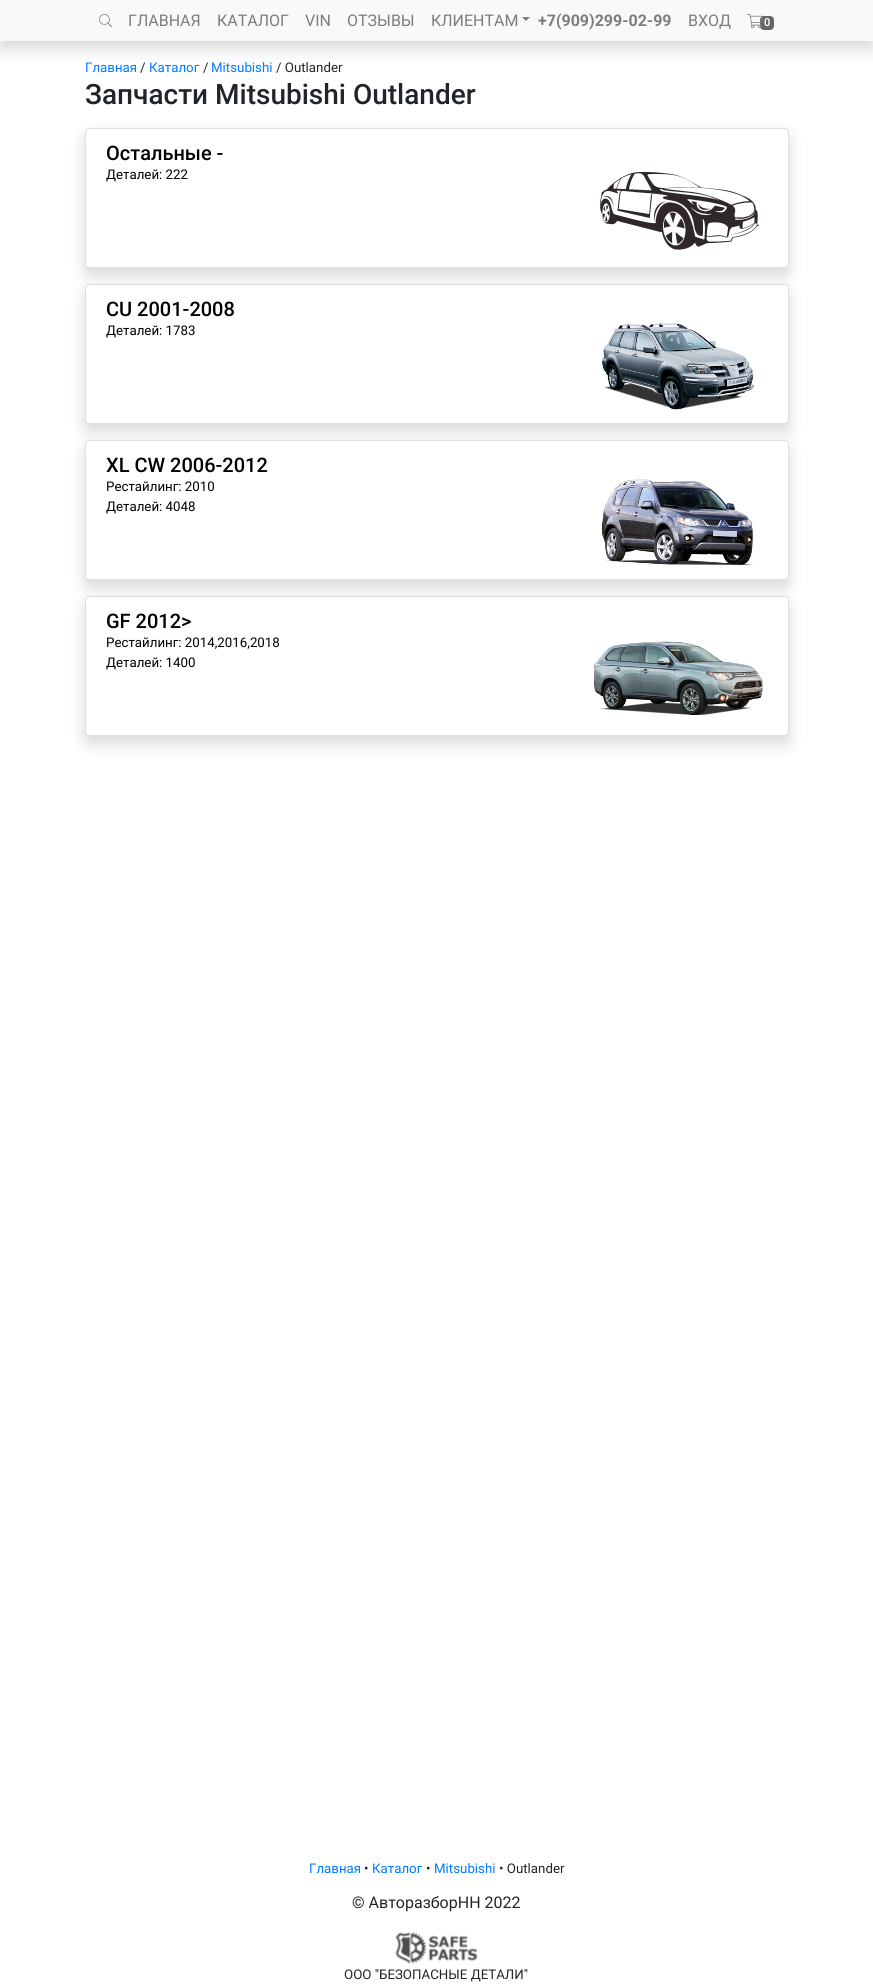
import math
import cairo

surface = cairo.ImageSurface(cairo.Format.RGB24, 873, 1985)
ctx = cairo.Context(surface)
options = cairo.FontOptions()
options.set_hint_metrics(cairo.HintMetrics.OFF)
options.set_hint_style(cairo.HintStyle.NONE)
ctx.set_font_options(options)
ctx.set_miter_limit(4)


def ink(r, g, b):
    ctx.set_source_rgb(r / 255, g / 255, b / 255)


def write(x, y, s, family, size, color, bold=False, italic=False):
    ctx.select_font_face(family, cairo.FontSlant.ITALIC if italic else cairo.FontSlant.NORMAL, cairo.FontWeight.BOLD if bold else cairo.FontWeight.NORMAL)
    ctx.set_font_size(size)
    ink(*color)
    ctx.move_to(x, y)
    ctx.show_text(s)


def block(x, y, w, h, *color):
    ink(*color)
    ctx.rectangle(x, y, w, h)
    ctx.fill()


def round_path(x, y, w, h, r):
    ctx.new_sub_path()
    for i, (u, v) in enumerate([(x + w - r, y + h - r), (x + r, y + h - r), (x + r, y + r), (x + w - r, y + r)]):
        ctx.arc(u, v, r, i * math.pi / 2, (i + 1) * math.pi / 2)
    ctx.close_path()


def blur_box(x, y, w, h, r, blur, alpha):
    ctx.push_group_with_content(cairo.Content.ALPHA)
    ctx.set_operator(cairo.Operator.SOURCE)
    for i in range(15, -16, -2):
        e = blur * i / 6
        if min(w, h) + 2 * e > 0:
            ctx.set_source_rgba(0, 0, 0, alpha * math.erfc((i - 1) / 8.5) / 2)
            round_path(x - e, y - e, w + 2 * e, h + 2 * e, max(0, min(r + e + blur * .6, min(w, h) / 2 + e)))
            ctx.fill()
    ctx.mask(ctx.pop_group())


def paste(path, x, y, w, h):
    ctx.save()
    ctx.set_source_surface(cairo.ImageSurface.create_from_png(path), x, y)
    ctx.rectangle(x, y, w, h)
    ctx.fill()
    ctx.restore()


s1 = dict(family="Roboto", size=16, color=(124, 125, 125))
s2 = dict(family="Roboto", size=16, color=(124, 125, 125), bold=True)
s3 = dict(family="Roboto SemiBold", size=11, color=(255, 255, 255))
s4 = dict(family="Roboto", size=13.3, color=(0, 123, 255))
s5 = dict(family="Roboto", size=13.3, color=(33, 37, 41))
s6 = dict(family="Roboto Medium", size=28, color=(33, 37, 41))
s7 = dict(family="Roboto Medium", size=20, color=(0, 0, 0))
s8 = dict(family="Roboto", size=13.3, color=(0, 0, 0))
s9 = dict(family="Roboto", size=16, color=(33, 37, 41))

ink(255, 255, 255)
ctx.paint()
ink(0, 0, 0)
blur_box(0, 8, 873, 41, 0, 8, 0.15)
block(0, 0, 873, 41, 248, 249, 250)
paste("pic1.png", 99, 14, 13, 13)
write(128, 26, "ГЛАВНАЯ", **s1)
write(217, 26, "КАТАЛОГ", **s1)
write(305, 26, "VIN", **s1)
write(347, 26, "ОТЗЫВЫ", **s1)
write(431, 26, "КЛИЕНТАМ", **s1)
ctx.new_path()
ctx.move_to(522, 17)
ctx.line_to(530, 17)
ctx.line_to(526, 21)
ctx.close_path()
ctx.fill()
write(538, 26, "+7(909)299-02-99", **s2)
write(688, 26, "ВХОД", **s1)
ink(102, 102, 102)
round_path(760, 16, 14, 14, 4)
ctx.fill()
paste("pic2.png", 747, 14, 16, 14)
write(764, 26, "0", **s3)
write(85, 72, "Главная", **s4)
write(140, 72, "/", **s5)
write(149, 72, "Каталог", **s4)
write(203, 72, "/", **s5)
write(211, 72, "Mitsubishi", **s4)
write(276, 72, "/ Outlander", **s5)
write(85, 104, "Запчасти Mitsubishi Outlander", **s6)
ink(0, 0, 0)
blur_box(85, 136, 704, 140, 4, 8, 0.15)
ink(255, 255, 255)
round_path(85.5, 128.5, 703, 139, 3.5)
ctx.fill_preserve()
ink(223, 223, 223)
ctx.set_line_width(1)
ctx.stroke()
write(106, 160, "Остальные -", **s7)
write(106, 179, "Деталей: 222", **s8)
paste("pic3.png", 599, 171, 161, 79)
ink(0, 0, 0)
blur_box(85, 292, 704, 140, 4, 8, 0.15)
ink(255, 255, 255)
round_path(85.5, 284.5, 703, 139, 3.5)
ctx.fill_preserve()
ink(223, 223, 223)
ctx.stroke()
write(106, 316, "CU 2001-2008", **s7)
write(106, 335, "Деталей: 1783", **s8)
paste("pic4.png", 602, 323, 152, 87)
ink(0, 0, 0)
blur_box(85, 448, 704, 140, 4, 8, 0.15)
ink(255, 255, 255)
round_path(85.5, 440.5, 703, 139, 3.5)
ctx.fill_preserve()
ink(223, 223, 223)
ctx.stroke()
write(106, 472, "XL CW 2006-2012", **s7)
write(106, 491, "Рестайлинг: 2010", **s8)
write(106, 511, "Деталей: 4048", **s8)
paste("pic5.png", 602, 479, 152, 86)
ink(0, 0, 0)
blur_box(85, 604, 704, 140, 4, 8, 0.15)
ink(255, 255, 255)
round_path(85.5, 596.5, 703, 139, 3.5)
ctx.fill_preserve()
ink(223, 223, 223)
ctx.stroke()
write(106, 628, "GF 2012>", **s7)
write(106, 647, "Рестайлинг: 2014,2016,2018", **s8)
write(106, 667, "Деталей: 1400", **s8)
paste("pic6.png", 593, 641, 170, 75)
write(309, 1873, "Главная", **s4)
write(364, 1873, "•", **s5)
write(372, 1873, "Каталог", **s4)
write(426, 1873, "•", **s5)
write(434, 1873, "Mitsubishi", **s4)
write(499, 1873, "• Outlander", **s5)
write(352, 1908, "© АвторазборНН 2022", **s9)
paste("pic7.png", 395, 1932, 83, 33)
write(344, 1979, "ООО \"БЕЗОПАСНЫЕ ДЕТАЛИ\"", **s5)
surface.write_to_png("screenshot.png")
